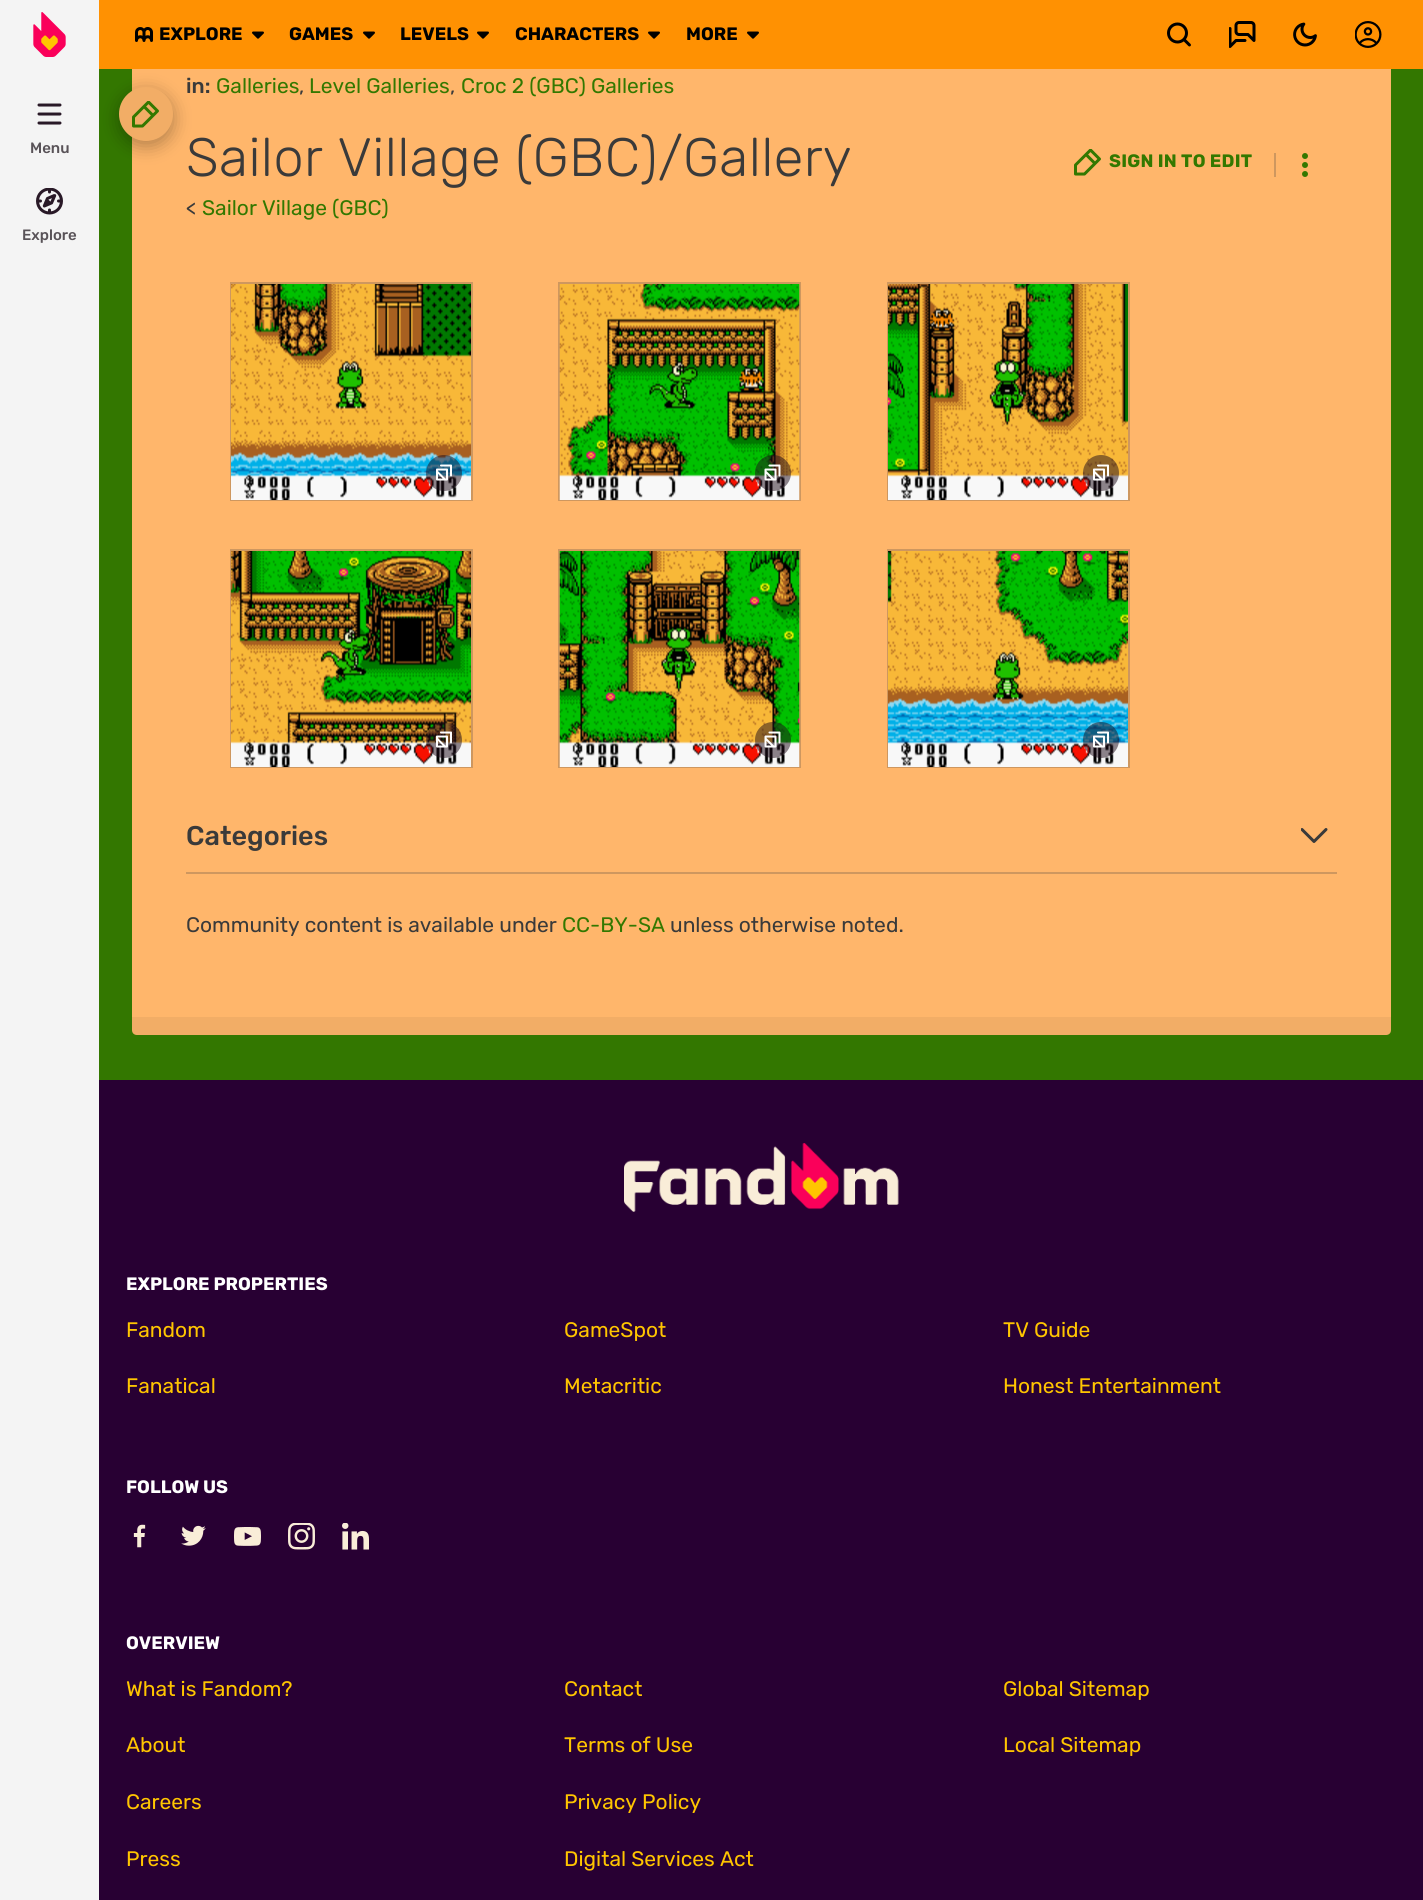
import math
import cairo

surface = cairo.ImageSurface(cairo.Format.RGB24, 1423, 1900)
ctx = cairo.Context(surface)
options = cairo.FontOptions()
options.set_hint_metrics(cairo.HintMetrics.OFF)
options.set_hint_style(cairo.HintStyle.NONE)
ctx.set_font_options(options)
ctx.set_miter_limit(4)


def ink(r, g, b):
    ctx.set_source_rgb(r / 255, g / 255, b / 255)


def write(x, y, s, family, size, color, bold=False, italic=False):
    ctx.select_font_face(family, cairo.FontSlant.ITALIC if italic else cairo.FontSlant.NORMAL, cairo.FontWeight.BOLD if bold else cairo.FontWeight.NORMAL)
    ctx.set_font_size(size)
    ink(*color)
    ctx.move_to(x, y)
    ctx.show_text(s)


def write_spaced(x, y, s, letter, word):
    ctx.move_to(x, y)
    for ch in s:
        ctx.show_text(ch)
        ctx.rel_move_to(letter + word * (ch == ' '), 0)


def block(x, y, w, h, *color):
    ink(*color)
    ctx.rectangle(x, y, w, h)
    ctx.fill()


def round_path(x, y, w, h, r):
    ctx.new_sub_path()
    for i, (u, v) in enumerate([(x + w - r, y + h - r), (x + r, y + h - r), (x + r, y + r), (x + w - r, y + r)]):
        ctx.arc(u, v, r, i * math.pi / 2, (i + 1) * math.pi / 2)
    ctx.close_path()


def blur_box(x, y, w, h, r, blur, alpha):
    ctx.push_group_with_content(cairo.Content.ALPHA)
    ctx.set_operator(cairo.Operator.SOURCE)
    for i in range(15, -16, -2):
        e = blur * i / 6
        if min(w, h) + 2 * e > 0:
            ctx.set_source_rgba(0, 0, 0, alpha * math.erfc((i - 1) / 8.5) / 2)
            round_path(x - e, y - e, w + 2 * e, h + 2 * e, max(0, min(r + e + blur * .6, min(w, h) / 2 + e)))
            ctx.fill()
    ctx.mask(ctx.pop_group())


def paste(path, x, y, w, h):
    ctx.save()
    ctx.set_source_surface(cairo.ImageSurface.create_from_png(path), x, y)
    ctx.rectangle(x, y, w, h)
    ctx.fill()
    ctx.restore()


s1 = dict(family="Rubik", size=18, color=(0, 0, 0), bold=True)
s2 = dict(family="Rubik Medium", size=15, color=(89, 83, 88))
s3 = dict(family="Rubik Medium", size=21, color=(58, 58, 58))
s4 = dict(family="Rubik", size=21, color=(51, 120, 0))
s5 = dict(family="Rubik", size=21, color=(58, 58, 58))
s6 = dict(family="Rubik Medium", size=27, color=(58, 58, 58))
s7 = dict(family="Rubik", size=18, color=(255, 255, 255), bold=True)
s8 = dict(family="Rubik", size=21, color=(255, 197, 0))

ink(51, 119, 0)
ctx.paint()
block(132, 69, 1259, 948, 255, 182, 107)
ink(0, 0, 0)
blur_box(119, 92, 54, 54, 27, 9, 0.3)
block(99, 0, 1324, 69, 255, 145, 2)
block(0, 0, 99, 1900, 244, 244, 244)
paste("pic1.png", 33, 12, 33, 45)
paste("pic2.png", 135, 27, 18, 15)
write(159, 40, "EXPLORE", **s1)
paste("pic3.png", 252, 31, 12, 8)
write(289, 40, "GAMES", **s1)
paste("pic3.png", 363, 31, 12, 8)
write(400, 40, "LEVELS", **s1)
paste("pic3.png", 477, 31, 12, 8)
write(515, 40, "CHARACTERS", **s1)
paste("pic3.png", 648, 31, 12, 8)
write(686, 40, "MORE", **s1)
paste("pic3.png", 747, 31, 12, 8)
paste("pic4.png", 1167, 22, 24, 25)
paste("pic5.png", 1229, 21, 27, 27)
paste("pic6.png", 1293, 22, 24, 25)
paste("pic7.png", 1355, 21, 27, 27)
paste("pic8.png", 37, 103, 25, 22)
write(30, 153, "Menu", **s2)
paste("pic9.png", 36, 188, 27, 27)
write(22, 240, "Explore", **s2)
ink(242, 173, 102)
ctx.new_path()
ctx.arc(146, 114, 27, 0, 2 * math.pi)
ctx.fill()
paste("pic10.png", 132, 101, 27, 27)
write(186, 93, "in:", **s3)
write(216, 93, "Galleries", **s4)
write(299, 93, ",", **s5)
write(309, 93, "Level Galleries", **s4)
write(450, 93, ",", **s5)
write(461, 93, "Croc 2 (GBC) Galleries", **s4)
ctx.select_font_face("Rubik Light")
ctx.set_font_size(54)
ink(58, 58, 58)
write_spaced(186, 176, "Sailor Village (GBC)/Gallery", 0.4, 0)
write(186, 215, "<", **s5)
write(202, 215, "Sailor Village (GBC)", **s4)
paste("pic11.png", 1074, 149, 27, 27)
ctx.select_font_face("Rubik", cairo.FontSlant.NORMAL, cairo.FontWeight.BOLD)
ctx.set_font_size(18)
write_spaced(1109, 167, "SIGN IN TO EDIT", 0.25, 0)
block(1274, 153, 2, 24, 206, 151, 95)
paste("pic12.png", 1302, 153, 6, 24)
ctx.rectangle(231, 283, 241, 217)
ctx.stroke()
paste("pic13.png", 231, 284, 240, 216)
ctx.set_source_rgba(0.118, 0.047, 0.106, 0.5)
ctx.arc(444, 473, 18, 0, 2 * math.pi)
ctx.fill()
paste("pic14.png", 436, 464, 16, 17)
ctx.rectangle(559, 283, 241, 217)
ink(206, 151, 95)
ctx.stroke()
paste("pic15.png", 559, 284, 241, 216)
ctx.set_source_rgba(0.118, 0.047, 0.106, 0.5)
ctx.arc(773, 473, 18, 0, 2 * math.pi)
ctx.fill()
paste("pic16.png", 764, 464, 17, 17)
ctx.rectangle(888, 283, 241, 217)
ink(206, 151, 95)
ctx.stroke()
paste("pic17.png", 888, 284, 240, 216)
ctx.set_source_rgba(0.118, 0.047, 0.106, 0.5)
ctx.arc(1101, 473, 18, 0, 2 * math.pi)
ctx.fill()
paste("pic18.png", 1093, 464, 16, 17)
ctx.rectangle(231, 550, 241, 217)
ink(206, 151, 95)
ctx.stroke()
paste("pic19.png", 231, 551, 240, 216)
ctx.set_source_rgba(0.118, 0.047, 0.106, 0.5)
ctx.arc(444, 740, 18, 0, 2 * math.pi)
ctx.fill()
paste("pic20.png", 436, 731, 16, 17)
ctx.rectangle(559, 550, 241, 217)
ink(206, 151, 95)
ctx.stroke()
paste("pic21.png", 559, 551, 241, 216)
ctx.set_source_rgba(0.118, 0.047, 0.106, 0.5)
ctx.arc(773, 740, 18, 0, 2 * math.pi)
ctx.fill()
paste("pic22.png", 764, 731, 17, 17)
ctx.rectangle(888, 550, 241, 217)
ink(206, 151, 95)
ctx.stroke()
paste("pic23.png", 888, 551, 240, 216)
ctx.set_source_rgba(0.118, 0.047, 0.106, 0.5)
ctx.arc(1101, 740, 18, 0, 2 * math.pi)
ctx.fill()
paste("pic24.png", 1093, 731, 16, 17)
block(186, 872, 1151, 2, 206, 151, 95)
write(186, 845, "Categories", **s6)
paste("pic25.png", 1301, 828, 27, 15)
write(186, 932, "Community content is available under", **s5)
write(562, 932, "CC-BY-SA", **s4)
write(670, 932, "unless otherwise noted.", **s5)
ink(242, 173, 102)
ctx.new_path()
ctx.move_to(132, 1017)
ctx.line_to(1391, 1017)
ctx.line_to(1391, 1030)
ctx.curve_to(1391, 1033, 1389, 1035, 1386, 1035)
ctx.line_to(137, 1035)
ctx.curve_to(134, 1035, 132, 1033, 132, 1030)
ctx.close_path()
ctx.fill()
block(99, 1080, 1324, 820, 40, 0, 51)
paste("pic26.png", 624, 1143, 275, 69)
write(126, 1290, "EXPLORE PROPERTIES", **s7)
write(126, 1337, "Fandom", **s8)
write(564, 1337, "GameSpot", **s8)
write(1003, 1337, "TV Guide", **s8)
write(126, 1393, "Fanatical", **s8)
write(564, 1393, "Metacritic", **s8)
write(1003, 1393, "Honest Entertainment", **s8)
write(126, 1493, "FOLLOW US", **s7)
paste("pic27.png", 133, 1524, 13, 24)
paste("pic28.png", 181, 1525, 25, 21)
paste("pic29.png", 234, 1527, 27, 19)
paste("pic30.png", 288, 1523, 27, 27)
paste("pic31.png", 342, 1523, 27, 27)
write(126, 1649, "OVERVIEW", **s7)
write(126, 1696, "What is Fandom?", **s8)
write(564, 1696, "Contact", **s8)
write(1003, 1696, "Global Sitemap", **s8)
write(126, 1752, "About", **s8)
write(564, 1752, "Terms of Use", **s8)
write(1003, 1752, "Local Sitemap", **s8)
write(126, 1809, "Careers", **s8)
write(564, 1809, "Privacy Policy", **s8)
write(126, 1866, "Press", **s8)
write(564, 1866, "Digital Services Act", **s8)
surface.write_to_png("screenshot.png")
